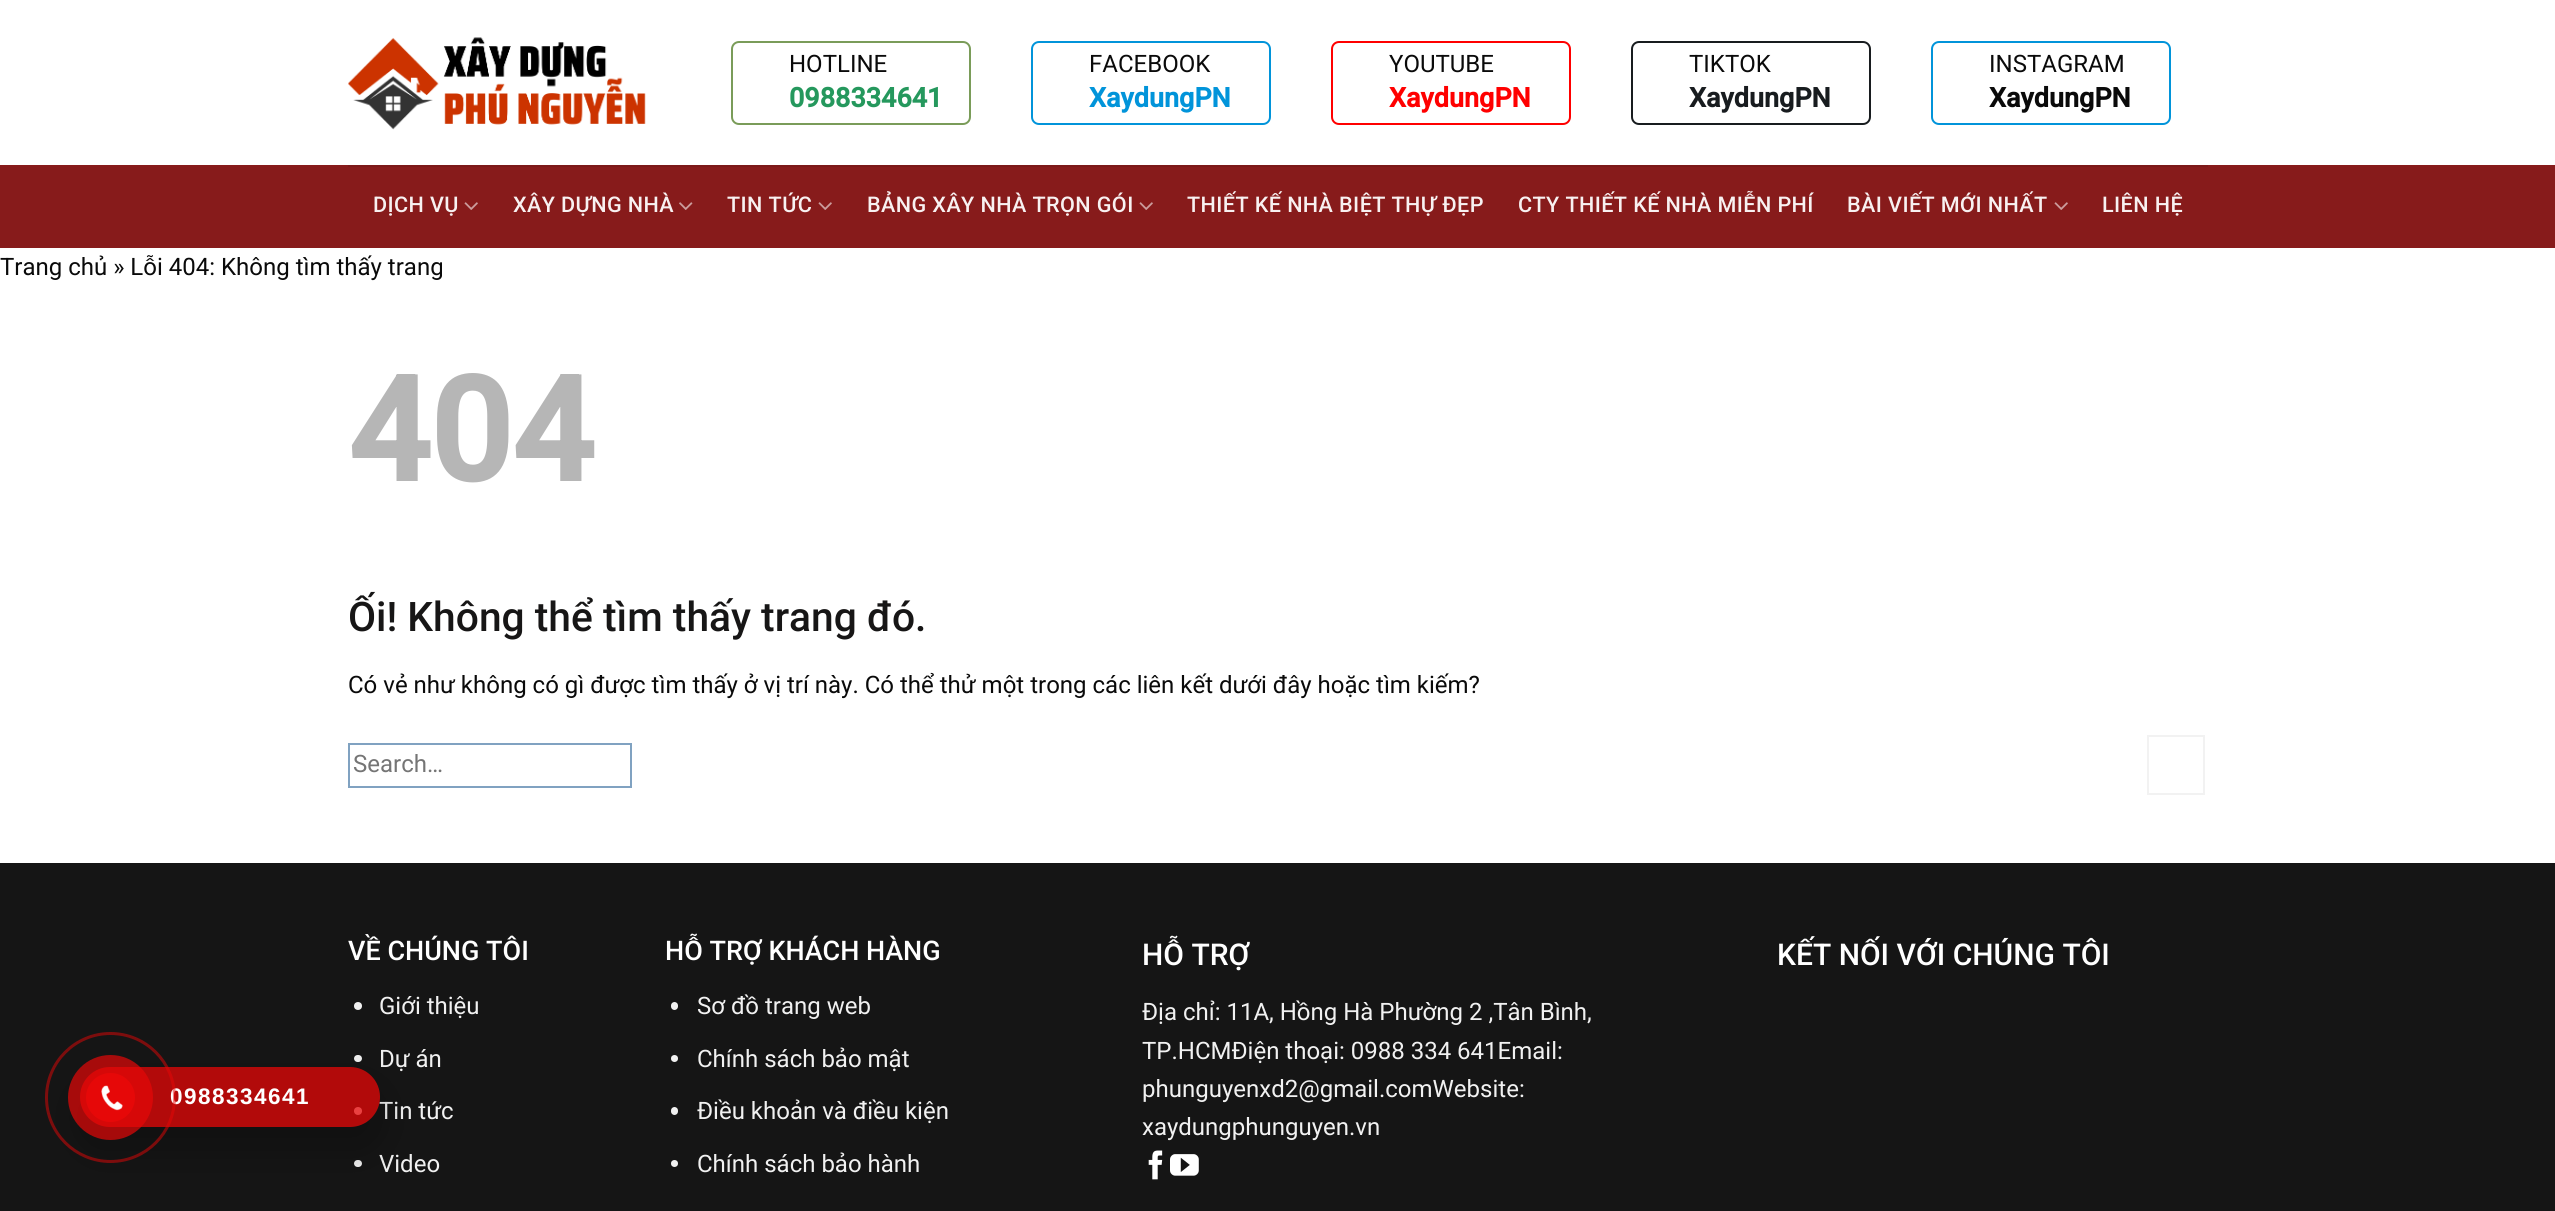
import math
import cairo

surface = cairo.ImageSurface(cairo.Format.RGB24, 2555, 1211)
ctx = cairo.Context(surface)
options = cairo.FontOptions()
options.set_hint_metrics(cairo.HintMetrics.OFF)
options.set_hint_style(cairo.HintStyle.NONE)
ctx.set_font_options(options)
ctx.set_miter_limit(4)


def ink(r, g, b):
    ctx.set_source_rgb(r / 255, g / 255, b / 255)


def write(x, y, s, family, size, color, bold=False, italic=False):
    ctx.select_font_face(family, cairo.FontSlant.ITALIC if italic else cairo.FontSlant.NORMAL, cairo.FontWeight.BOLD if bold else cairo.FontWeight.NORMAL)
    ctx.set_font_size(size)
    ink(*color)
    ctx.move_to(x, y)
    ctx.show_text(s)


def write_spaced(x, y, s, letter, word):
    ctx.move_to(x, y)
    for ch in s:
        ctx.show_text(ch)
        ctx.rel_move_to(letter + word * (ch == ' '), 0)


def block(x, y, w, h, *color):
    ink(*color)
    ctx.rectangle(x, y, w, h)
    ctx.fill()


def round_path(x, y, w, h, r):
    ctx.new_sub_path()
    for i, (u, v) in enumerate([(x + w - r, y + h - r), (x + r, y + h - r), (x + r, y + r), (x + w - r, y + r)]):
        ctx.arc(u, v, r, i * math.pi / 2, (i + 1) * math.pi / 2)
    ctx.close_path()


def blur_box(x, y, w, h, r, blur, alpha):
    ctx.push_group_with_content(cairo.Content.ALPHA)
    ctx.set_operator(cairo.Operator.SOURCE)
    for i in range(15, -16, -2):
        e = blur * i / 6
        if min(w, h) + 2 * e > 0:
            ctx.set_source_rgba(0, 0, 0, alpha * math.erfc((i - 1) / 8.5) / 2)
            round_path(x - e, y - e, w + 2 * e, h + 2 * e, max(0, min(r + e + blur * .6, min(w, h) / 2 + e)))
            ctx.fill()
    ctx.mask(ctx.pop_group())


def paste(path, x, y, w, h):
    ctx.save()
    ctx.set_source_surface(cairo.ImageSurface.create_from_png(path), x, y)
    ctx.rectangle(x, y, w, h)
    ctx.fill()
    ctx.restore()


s1 = dict(family="Roboto", size=24, color=(10, 10, 10))
s2 = dict(family="Roboto", size=27, color=(37, 152, 93), bold=True)
s3 = dict(family="Roboto", size=27, color=(1, 148, 218), bold=True)
s4 = dict(family="Roboto", size=27, color=(255, 0, 0), bold=True)
s5 = dict(family="Roboto", size=27, color=(24, 28, 31), bold=True)
s6 = dict(family="Roboto", size=27, color=(10, 10, 10), bold=True)
s7 = dict(family="Roboto", size=144, color=(182, 182, 182), bold=True)
s8 = dict(family="Roboto Medium", size=40.75, color=(23, 22, 22))
s9 = dict(family="Roboto", size=24, color=(117, 117, 117))
s10 = dict(family="Roboto Medium", size=27, color=(255, 255, 255))
s11 = dict(family="Roboto", size=24, color=(241, 241, 241))
s12 = dict(family="Roboto Medium", size=30, color=(255, 255, 255))

ink(255, 255, 255)
ctx.paint()
paste("pic1.png", 348, 37, 298, 93)
round_path(732, 42, 238, 82, 7)
ink(122, 156, 89)
ctx.stroke()
write(789, 72, "HOTLINE", **s1)
write(789, 107, "0988334641", **s2)
round_path(1032, 42, 238, 82, 7)
ink(1, 148, 218)
ctx.stroke()
write(1089, 72, "FACEBOOK", **s1)
write(1089, 107, "XaydungPN", **s3)
round_path(1332, 42, 238, 82, 7)
ink(255, 0, 0)
ctx.stroke()
write(1389, 72, "YOUTUBE", **s1)
write(1389, 107, "XaydungPN", **s4)
round_path(1632, 42, 238, 82, 7)
ink(24, 28, 31)
ctx.stroke()
write(1689, 72, "TIKTOK", **s1)
write(1689, 107, "XaydungPN", **s5)
round_path(1932, 42, 238, 82, 7)
ink(1, 148, 218)
ctx.stroke()
write(1989, 72, "INSTAGRAM", **s1)
write(1989, 107, "XaydungPN", **s6)
block(0, 165, 2555, 83, 135, 27, 27)
block(348, 165, 1860, 2, 123, 25, 25)
ctx.select_font_face("Roboto Medium")
ctx.set_font_size(21.6)
ink(248, 241, 241)
write_spaced(373, 212, "DỊCH VỤ", 0.4, 0)
paste("pic2.png", 464, 202, 14, 8)
write_spaced(513, 212, "XÂY DỰNG NHÀ", 0.4, 0)
paste("pic3.png", 679, 202, 14, 8)
write_spaced(727, 212, "TIN TỨC", 0.4, 0)
paste("pic2.png", 818, 202, 14, 8)
write_spaced(867, 212, "BẢNG XÂY NHÀ TRỌN GÓI", 0.4, 0)
paste("pic2.png", 1139, 202, 14, 8)
write_spaced(1187, 212, "THIẾT KẾ NHÀ BIỆT THỰ ĐẸP", 0.4, 0)
write_spaced(1518, 212, "CTY THIẾT KẾ NHÀ MIỄN PHÍ", 0.4, 0)
write_spaced(1847, 212, "BÀI VIẾT MỚI NHẤT", 0.4, 0)
paste("pic2.png", 2054, 202, 14, 8)
write_spaced(2102, 212, "LIÊN HỆ", 0.4, 0)
write(0, 275, "Trang chủ » Lỗi 404: Không tìm thấy trang", **s1)
write(348, 481, "404", **s7)
write(348, 631, "Ối! Không thể tìm thấy trang đó.", **s8)
write(348, 693, "Có vẻ như không có gì được tìm thấy ở vị trí này. Có thể thử một trong các liên kết dưới đây hoặc tìm kiếm?", **s1)
ctx.rectangle(349, 744, 282, 43)
ink(128, 162, 193)
ctx.stroke()
write(353, 772, "Search…", **s9)
ctx.rectangle(2148, 736, 56, 58)
ink(242, 242, 242)
ctx.stroke()
block(0, 863, 2555, 348, 21, 21, 21)
write(348, 960, "VỀ CHÚNG TÔI", **s10)
ink(241, 241, 241)
ctx.new_path()
ctx.arc(358, 1006, 4, 0, 2 * math.pi)
ctx.fill()
write(379, 1014, "Giới thiệu", **s11)
round_path(354, 1055, 8, 7, 3.5)
ctx.fill()
write(379, 1067, "Dự án", **s11)
ctx.new_path()
ctx.arc(358, 1111, 4, 0, 2 * math.pi)
ctx.fill()
write(379, 1119, "Tin tức", **s11)
round_path(354, 1160, 8, 7, 3.5)
ctx.fill()
write(379, 1172, "Video", **s11)
write(665, 960, "HỖ TRỢ KHÁCH HÀNG", **s10)
ink(241, 241, 241)
round_path(671, 1002, 7, 8, 3.5)
ctx.fill()
write(697, 1014, "Sơ đồ trang web", **s11)
ctx.new_path()
ctx.arc(674.5, 1058.5, 3.5, 0, 2 * math.pi)
ctx.fill()
write(697, 1067, "Chính sách bảo mật", **s11)
round_path(671, 1107, 7, 8, 3.5)
ctx.fill()
write(697, 1119, "Điều khoản và điều kiện", **s11)
ctx.new_path()
ctx.arc(674.5, 1163.5, 3.5, 0, 2 * math.pi)
ctx.fill()
write(697, 1172, "Chính sách bảo hành", **s11)
write(1142, 965, "HỖ TRỢ", **s12)
write(1142, 1020, "Địa chỉ: 11A, Hồng Hà Phường 2 ,Tân Bình,", **s11)
write(1142, 1059, "TP.HCMĐiện thoại: 0988 334 641Email:", **s11)
write(1142, 1097, "phunguyenxd2@gmail.comWebsite:", **s11)
write(1142, 1135, "xaydungphunguyen.vn", **s11)
paste("pic4.png", 1148, 1150, 15, 30)
paste("pic5.png", 1170, 1154, 29, 22)
write(1777, 965, "KẾT NỐI VỚI CHÚNG TÔI", **s12)
ctx.save()
ctx.set_fill_rule(cairo.FillRule.EVEN_ODD)
ctx.new_path()
ctx.move_to(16, 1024)
ctx.line_to(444, 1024)
ctx.line_to(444, 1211)
ctx.line_to(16, 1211)
ctx.close_path()
ctx.move_to(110, 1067)
ctx.line_to(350, 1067)
ctx.curve_to(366.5, 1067, 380, 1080.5, 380, 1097)
ctx.curve_to(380, 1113.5, 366.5, 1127, 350, 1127)
ctx.line_to(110, 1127)
ctx.curve_to(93.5, 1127, 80, 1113.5, 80, 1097)
ctx.curve_to(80, 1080.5, 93.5, 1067, 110, 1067)
ctx.close_path()
ctx.clip()
ink(0, 0, 0)
blur_box(80, 1088, 300, 60, 30, 21, 0.25)
ctx.restore()
ctx.set_source_rgba(0.902, 0.031, 0.031, 0.75)
round_path(80, 1067, 300, 60, 30)
ctx.fill()
ctx.select_font_face("Liberation Sans", cairo.FontSlant.NORMAL, cairo.FontWeight.BOLD)
ctx.set_font_size(22.5)
ink(255, 255, 255)
write_spaced(170, 1104, "0988334641", 1.5, 0)
ctx.new_path()
ctx.arc(110.5, 1097.5, 64, 0, 2 * math.pi)
ctx.set_source_rgba(0.902, 0.031, 0.031, 0.5)
ctx.set_line_width(3)
ctx.stroke()
ctx.set_source_rgba(0.902, 0.031, 0.031, 0.7)
ctx.arc(110.5, 1097.5, 42.5, 0, 2 * math.pi)
ctx.fill()
ink(230, 8, 8)
ctx.arc(110.5, 1097.5, 24.5, 0, 2 * math.pi)
ctx.fill()
paste("pic6.png", 101, 1085, 22, 26)
surface.write_to_png("screenshot.png")
